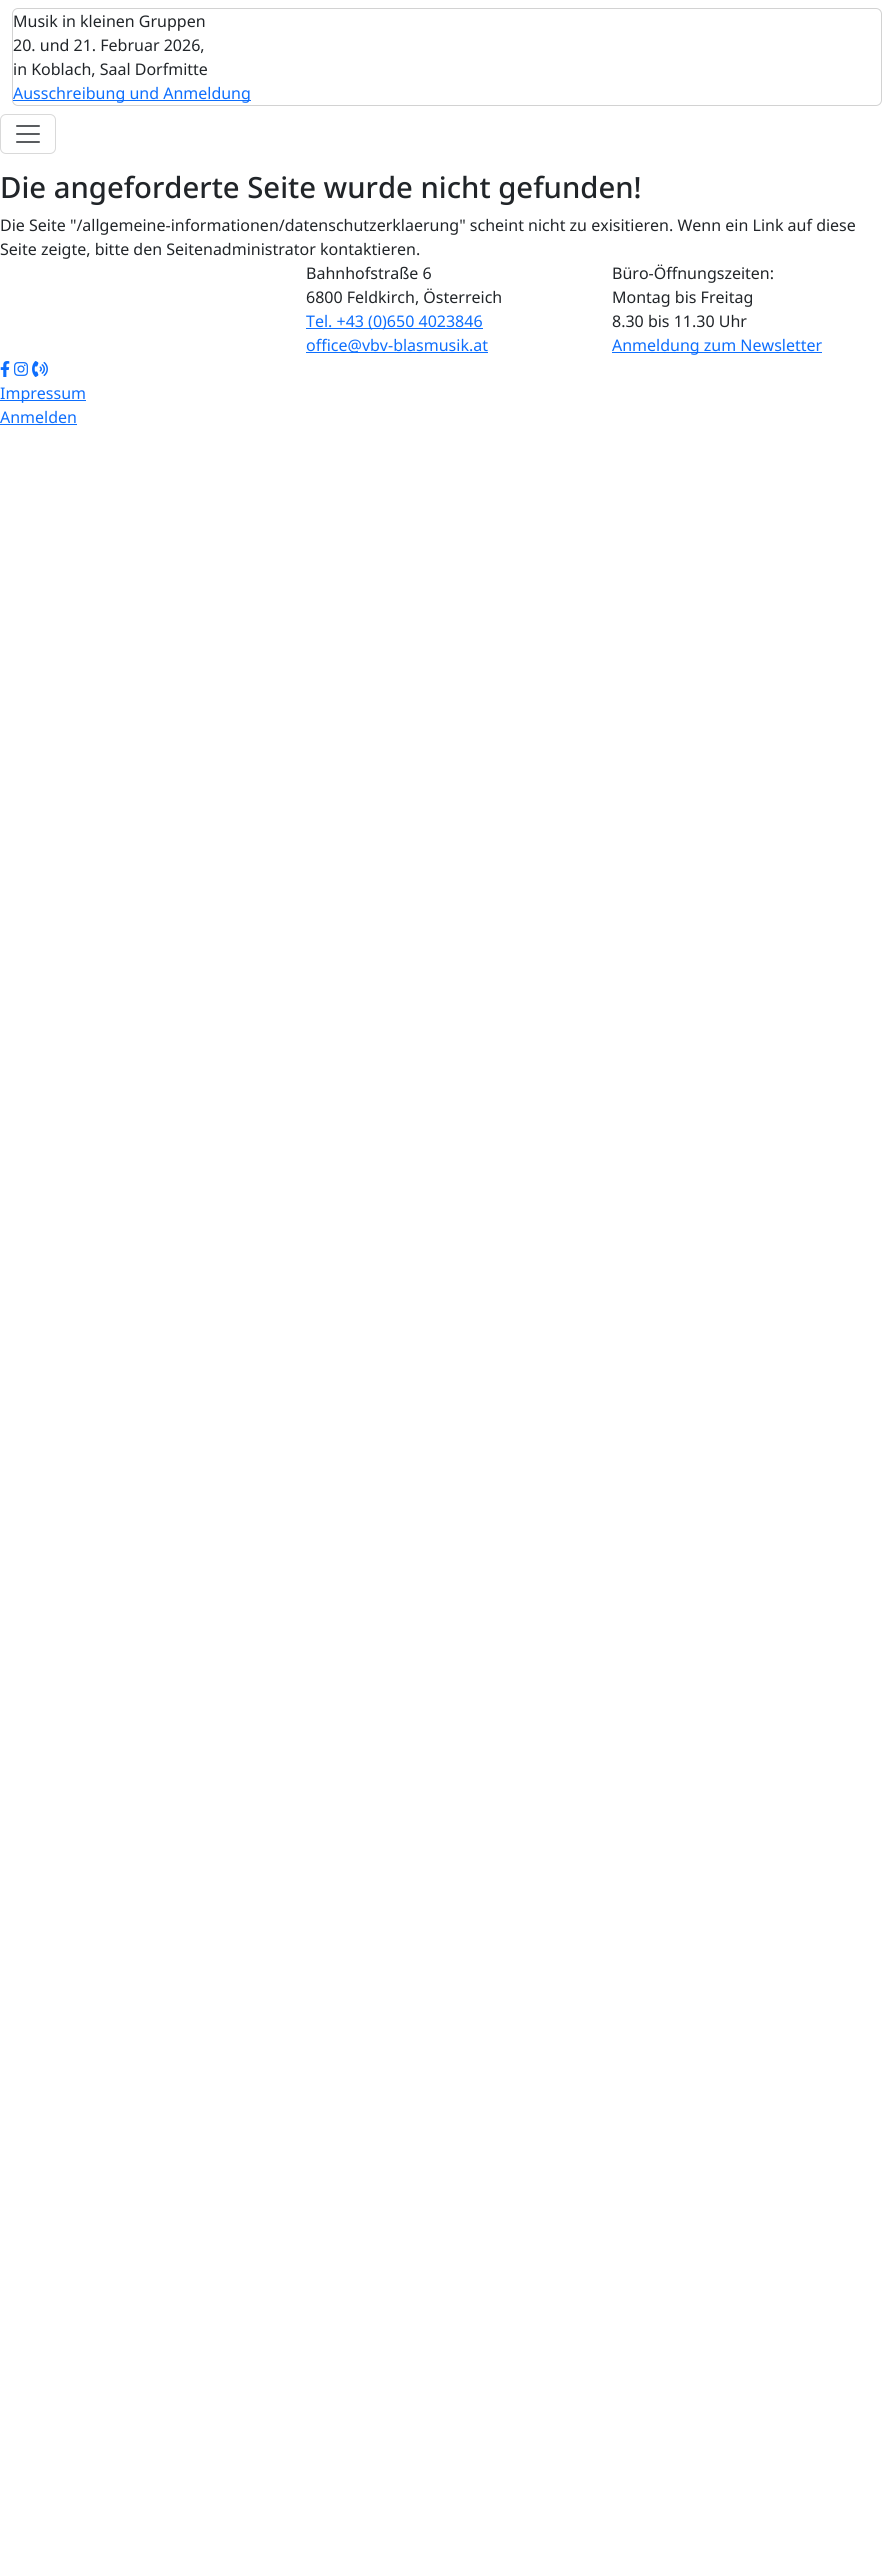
import math
import cairo

surface = cairo.ImageSurface(cairo.Format.RGB24, 894, 2562)
ctx = cairo.Context(surface)
options = cairo.FontOptions()
options.set_hint_metrics(cairo.HintMetrics.OFF)
options.set_hint_style(cairo.HintStyle.NONE)
ctx.set_font_options(options)
ctx.set_miter_limit(4)


def ink(r, g, b):
    ctx.set_source_rgb(r / 255, g / 255, b / 255)


def write(x, y, s, family, size, color, bold=False, italic=False):
    ctx.select_font_face(family, cairo.FontSlant.ITALIC if italic else cairo.FontSlant.NORMAL, cairo.FontWeight.BOLD if bold else cairo.FontWeight.NORMAL)
    ctx.set_font_size(size)
    ink(*color)
    ctx.move_to(x, y)
    ctx.show_text(s)


def block(x, y, w, h, *color):
    ink(*color)
    ctx.rectangle(x, y, w, h)
    ctx.fill()


def round_path(x, y, w, h, r):
    ctx.new_sub_path()
    for i, (u, v) in enumerate([(x + w - r, y + h - r), (x + r, y + h - r), (x + r, y + r), (x + w - r, y + r)]):
        ctx.arc(u, v, r, i * math.pi / 2, (i + 1) * math.pi / 2)
    ctx.close_path()


def paste(path, x, y, w, h):
    ctx.save()
    ctx.set_source_surface(cairo.ImageSurface.create_from_png(path), x, y)
    ctx.rectangle(x, y, w, h)
    ctx.fill()
    ctx.restore()


s1 = dict(family="Noto Sans", size=16, color=(33, 37, 41))
s2 = dict(family="Noto Sans", size=16, color=(13, 110, 253))
s3 = dict(family="Noto Sans Medium", size=29.25, color=(33, 37, 41))

ink(255, 255, 255)
ctx.paint()
round_path(12.5, 8.5, 869, 97, 5.5)
ink(210, 210, 210)
ctx.set_line_width(1)
ctx.stroke()
write(13, 27, "Musik in kleinen Gruppen", **s1)
write(13, 51, "20. und 21. Februar 2026,", **s1)
write(13, 75, "in Koblach, Saal Dorfmitte", **s1)
block(13, 100, 238, 1, 13, 110, 253)
write(13, 99, "Ausschreibung und Anmeldung", **s2)
round_path(0.5, 114.5, 55, 39, 5.5)
ink(217, 217, 217)
ctx.stroke()
paste("pic1.png", 16, 125, 24, 18)
write(0, 198, "Die angeforderte Seite wurde nicht gefunden!", **s3)
write(0, 231, "Die Seite \"/allgemeine-informationen/datenschutzerklaerung\" scheint nicht zu exisitieren. Wenn ein Link auf diese", **s1)
write(0, 255, "Seite zeigte, bitte den Seitenadministrator kontaktieren.", **s1)
write(306, 279, "Bahnhofstraße 6", **s1)
write(306, 303, "6800 Feldkirch, Österreich", **s1)
block(306, 328, 177, 1, 13, 110, 253)
write(306, 327, "Tel. +43 (0)650 4023846", **s2)
block(306, 352, 182, 1, 13, 110, 253)
write(306, 351, "office@vbv-blasmusik.at", **s2)
write(612, 279, "Büro-Öffnungszeiten:", **s1)
write(612, 303, "Montag bis Freitag", **s1)
write(612, 327, "8.30 bis 11.30 Uhr", **s1)
block(612, 352, 210, 1, 13, 110, 253)
write(612, 351, "Anmeldung zum Newsletter", **s2)
paste("pic2.png", 0, 361, 10, 16)
paste("pic3.png", 14, 362, 14, 14)
paste("pic4.png", 32, 361, 16, 16)
block(0, 400, 86, 1, 13, 110, 253)
write(0, 399, "Impressum", **s2)
write(0, 423, "Anmelden", **s2)
block(0, 424, 77, 1, 13, 110, 253)
surface.write_to_png("screenshot.png")
